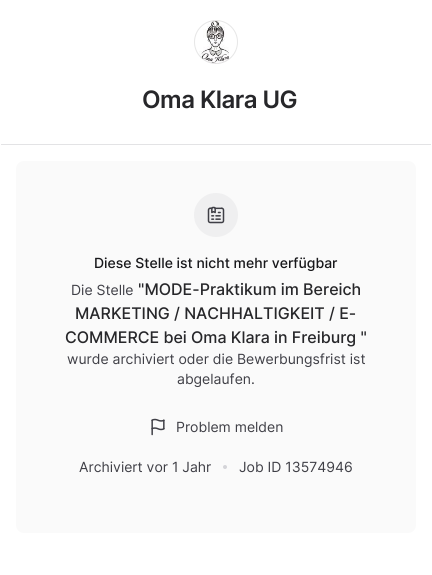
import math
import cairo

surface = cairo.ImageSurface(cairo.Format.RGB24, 432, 575)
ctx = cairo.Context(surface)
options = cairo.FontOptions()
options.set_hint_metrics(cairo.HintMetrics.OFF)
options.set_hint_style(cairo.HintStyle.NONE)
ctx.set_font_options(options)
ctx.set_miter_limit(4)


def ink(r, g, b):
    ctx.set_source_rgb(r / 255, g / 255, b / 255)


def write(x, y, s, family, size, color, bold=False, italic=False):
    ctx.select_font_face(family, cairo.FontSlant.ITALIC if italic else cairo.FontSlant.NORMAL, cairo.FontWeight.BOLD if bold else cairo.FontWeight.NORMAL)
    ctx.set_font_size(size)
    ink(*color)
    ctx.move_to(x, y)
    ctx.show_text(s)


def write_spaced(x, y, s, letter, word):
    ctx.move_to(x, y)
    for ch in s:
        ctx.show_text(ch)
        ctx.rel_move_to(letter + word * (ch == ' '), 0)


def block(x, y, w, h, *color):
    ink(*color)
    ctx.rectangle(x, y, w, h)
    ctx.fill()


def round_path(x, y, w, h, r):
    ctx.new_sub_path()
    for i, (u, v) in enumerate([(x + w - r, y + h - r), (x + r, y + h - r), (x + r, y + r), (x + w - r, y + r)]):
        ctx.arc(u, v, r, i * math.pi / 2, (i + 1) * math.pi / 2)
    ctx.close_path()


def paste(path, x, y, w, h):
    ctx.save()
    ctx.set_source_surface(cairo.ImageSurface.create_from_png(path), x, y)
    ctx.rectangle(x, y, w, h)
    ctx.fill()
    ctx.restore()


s1 = dict(family="Inter Medium", size=14, color=(24, 24, 27))
s2 = dict(family="Inter", size=14, color=(63, 63, 70))
s3 = dict(family="Inter Medium", size=16, color=(39, 39, 42))

ink(255, 255, 255)
ctx.paint()
paste("pic1.png", 199, 20, 30, 44)
ctx.arc(216, 42, 21.5, 0, 2 * math.pi)
ctx.set_source_rgba(0, 0, 0, 0.1)
ctx.set_line_width(1)
ctx.stroke()
ctx.select_font_face("Inter SemiBold")
ctx.set_font_size(24)
ink(39, 39, 42)
write_spaced(142, 108, "Oma Klara UG", -0.5, 0)
block(1, 144, 430, 1, 227, 227, 229)
ink(250, 250, 250)
round_path(16, 161, 400, 372, 8)
ctx.fill()
ink(239, 239, 240)
ctx.arc(216, 215, 22, 0, 2 * math.pi)
ctx.fill()
paste("pic2.png", 207, 206, 18, 18)
write(94, 268, "Diese Stelle ist nicht mehr verfügbar", **s1)
write(71, 295, "Die Stelle", **s2)
write(138, 295, "\"MODE-Praktikum im Bereich", **s3)
write(75, 319, "MARKETING / NACHHALTIGKEIT / E-", **s3)
write(65, 343, "COMMERCE bei Oma Klara in Freiburg \"", **s3)
write(67, 364, "wurde archiviert oder die Bewerbungsfrist ist", **s2)
write(177, 384, "abgelaufen.", **s2)
paste("pic3.png", 151, 418, 14, 18)
write(176, 432, "Problem melden", **s2)
write(79, 472, "Archiviert vor 1 Jahr", **s2)
ink(212, 212, 216)
ctx.new_path()
ctx.arc(225, 467, 2, 0, 2 * math.pi)
ctx.fill()
write(239, 472, "Job ID 13574946", **s2)
surface.write_to_png("screenshot.png")
